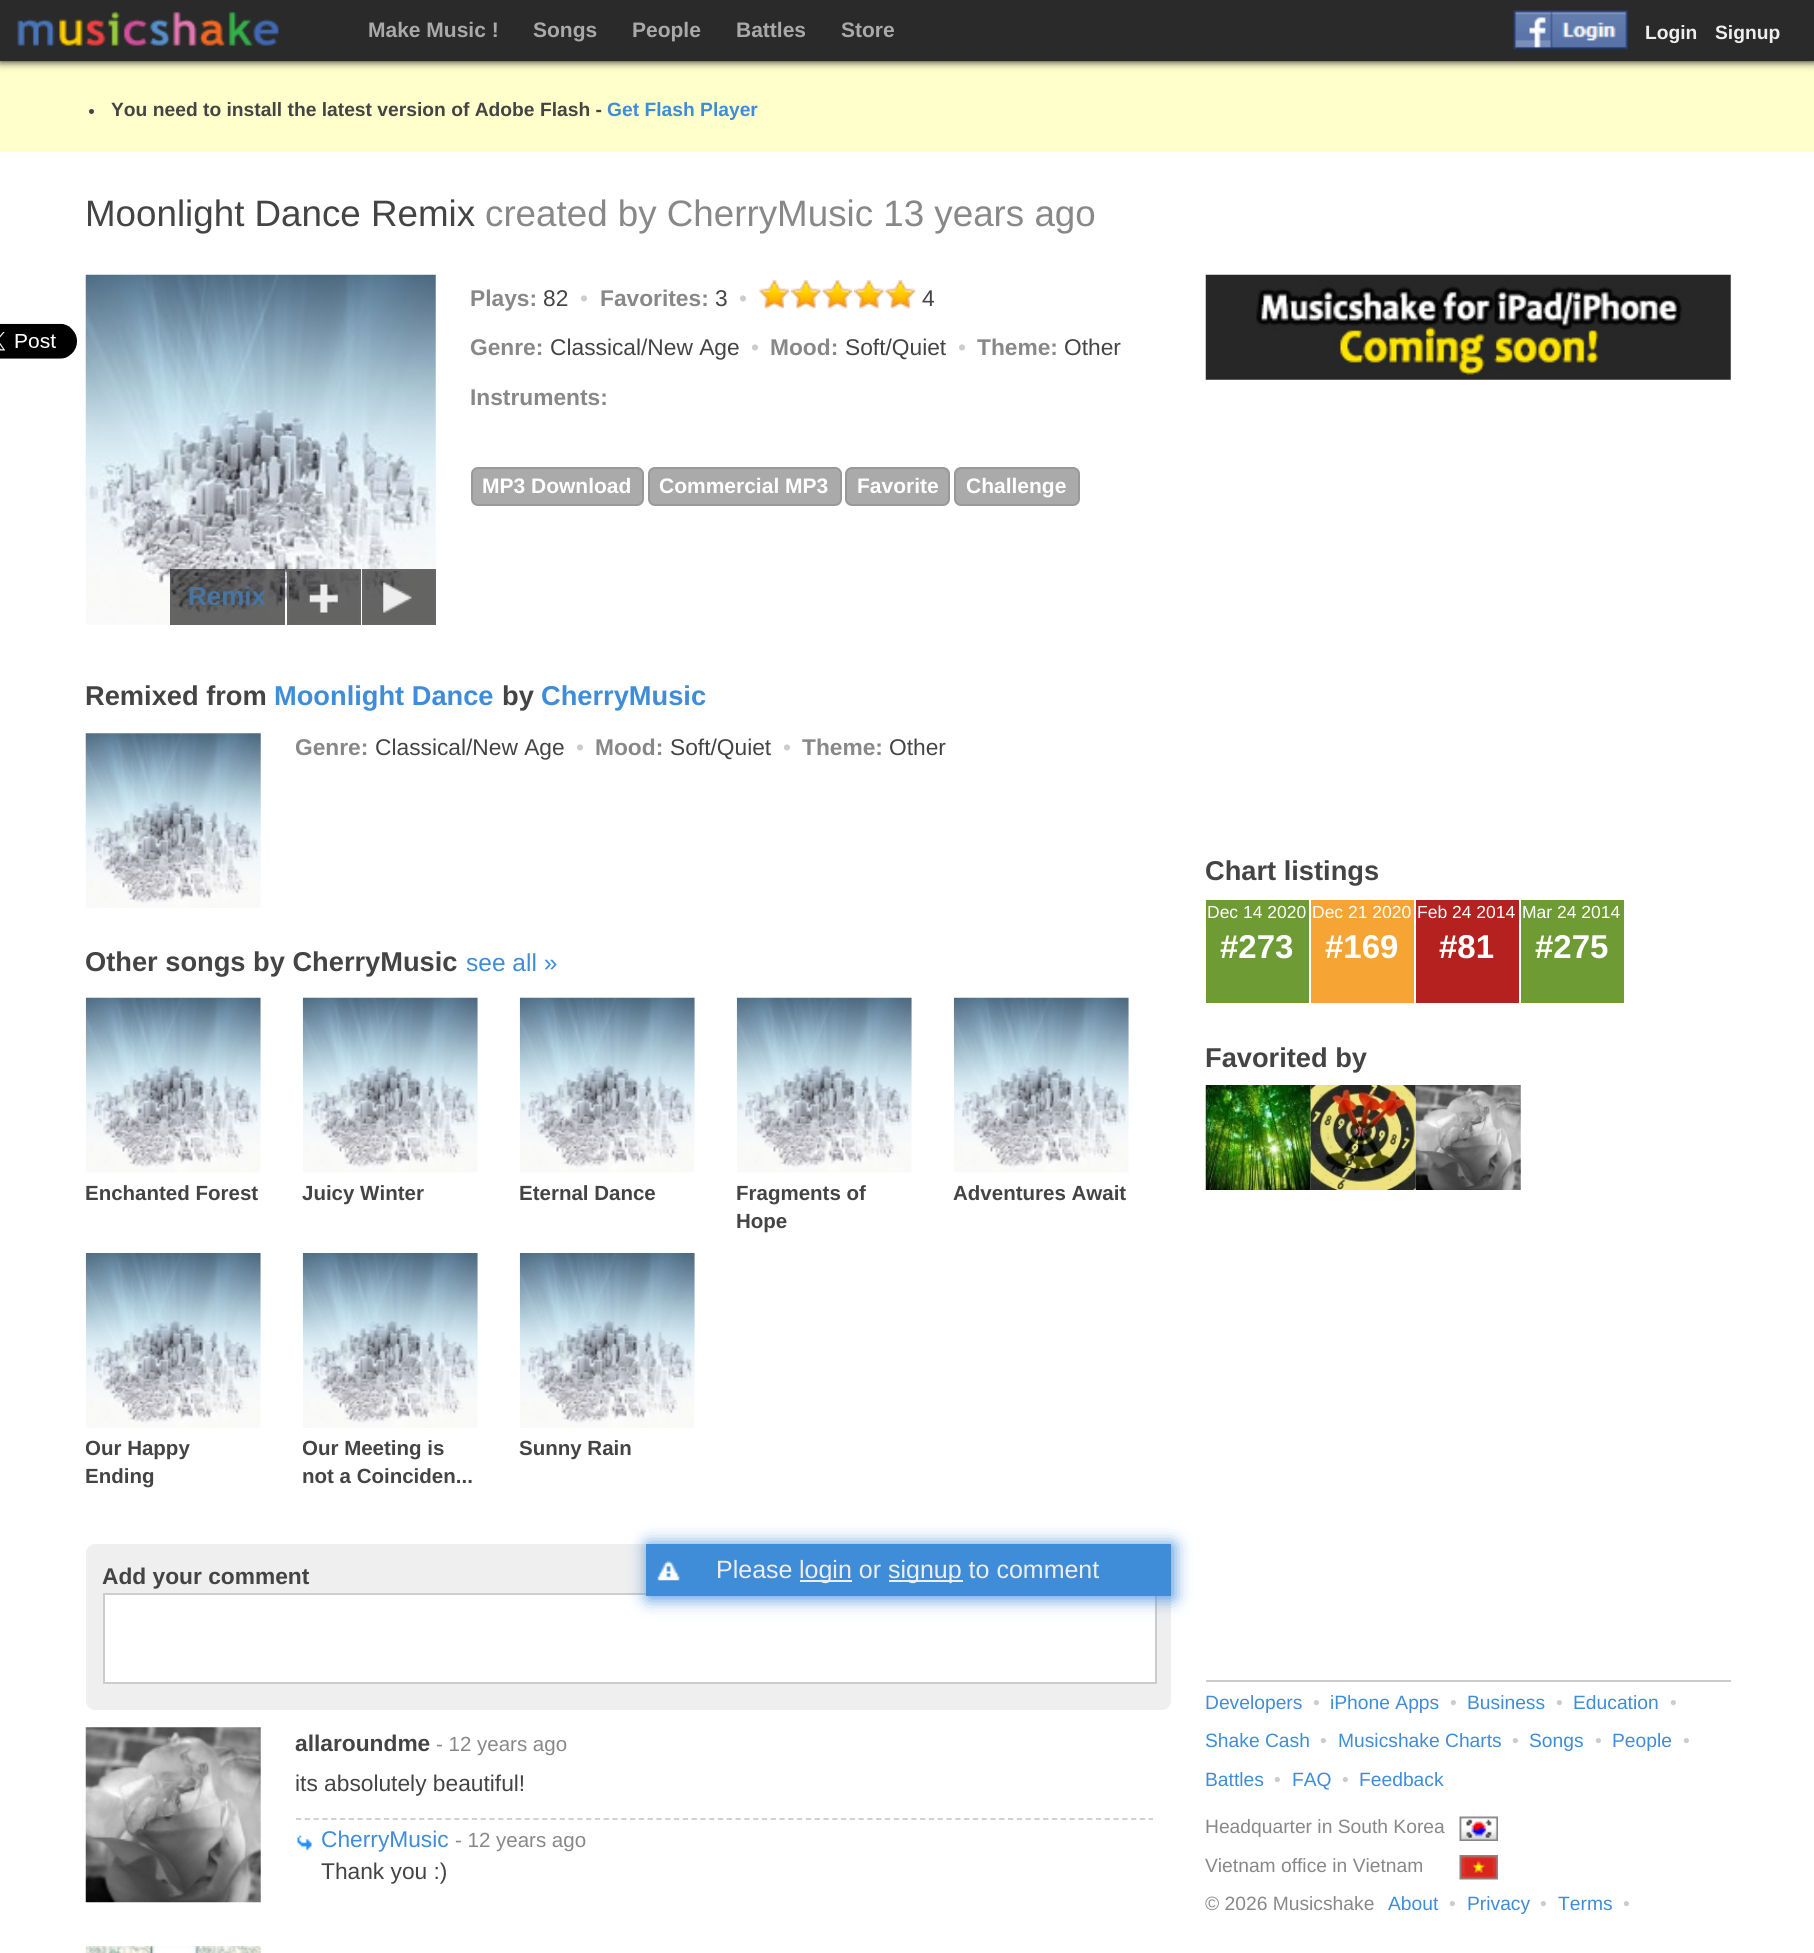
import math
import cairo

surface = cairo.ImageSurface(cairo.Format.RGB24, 1814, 1953)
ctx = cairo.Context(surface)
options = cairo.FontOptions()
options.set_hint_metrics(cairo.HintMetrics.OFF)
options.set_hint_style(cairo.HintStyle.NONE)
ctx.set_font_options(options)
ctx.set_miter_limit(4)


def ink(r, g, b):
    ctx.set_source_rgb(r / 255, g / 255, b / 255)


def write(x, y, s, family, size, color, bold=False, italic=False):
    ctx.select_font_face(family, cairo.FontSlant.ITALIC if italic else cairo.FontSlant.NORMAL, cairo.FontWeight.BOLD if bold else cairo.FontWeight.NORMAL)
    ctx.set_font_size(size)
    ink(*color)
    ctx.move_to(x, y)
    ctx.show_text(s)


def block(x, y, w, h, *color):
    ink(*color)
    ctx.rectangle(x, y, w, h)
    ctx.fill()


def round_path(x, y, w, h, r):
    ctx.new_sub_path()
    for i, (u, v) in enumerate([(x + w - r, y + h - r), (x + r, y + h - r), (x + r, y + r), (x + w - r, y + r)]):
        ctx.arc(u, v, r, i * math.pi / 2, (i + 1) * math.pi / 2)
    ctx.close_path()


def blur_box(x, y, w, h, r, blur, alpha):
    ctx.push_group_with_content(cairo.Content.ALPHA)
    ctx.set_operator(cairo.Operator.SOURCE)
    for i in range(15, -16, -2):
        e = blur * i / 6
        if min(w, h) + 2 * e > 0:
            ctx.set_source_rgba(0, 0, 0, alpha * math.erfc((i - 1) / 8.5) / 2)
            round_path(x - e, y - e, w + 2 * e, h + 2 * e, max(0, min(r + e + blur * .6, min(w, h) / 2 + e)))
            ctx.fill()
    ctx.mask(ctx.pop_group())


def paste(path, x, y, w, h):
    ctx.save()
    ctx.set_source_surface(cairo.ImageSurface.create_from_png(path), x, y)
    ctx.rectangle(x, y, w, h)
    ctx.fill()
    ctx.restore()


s1 = dict(family="Liberation Sans", size=21, color=(169, 169, 169), bold=True)
s2 = dict(family="Liberation Sans", size=19.25, color=(238, 238, 238), bold=True)
s3 = dict(family="Liberation Sans", size=19.25, color=(68, 68, 68), bold=True)
s4 = dict(family="Liberation Sans", size=19.25, color=(63, 140, 217), bold=True)
s5 = dict(family="Liberation Sans", size=36.75, color=(68, 68, 68))
s6 = dict(family="Liberation Sans", size=36.75, color=(136, 136, 136))
s7 = dict(family="Liberation Sans", size=22.75, color=(136, 136, 136), bold=True)
s8 = dict(family="Liberation Sans", size=22.75, color=(68, 68, 68))
s9 = dict(family="Liberation Sans", size=22.75, color=(204, 204, 204))
s10 = dict(family="Liberation Sans", size=21, color=(255, 255, 255), bold=True)
s11 = dict(family="Liberation Sans", size=26, color=(71, 117, 164), bold=True)
s12 = dict(family="Liberation Sans", size=27.25, color=(68, 68, 68), bold=True)
s13 = dict(family="Liberation Sans", size=27.25, color=(63, 140, 217), bold=True)
s14 = dict(family="Liberation Sans", size=24.5, color=(63, 140, 217))
s15 = dict(family="Liberation Sans", size=20.5, color=(68, 68, 68), bold=True)
s16 = dict(family="Liberation Sans", size=22.75, color=(68, 68, 68), bold=True)
s17 = dict(family="Liberation Sans", size=25, color=(238, 238, 238))
s18 = dict(family="Liberation Sans", size=20.5, color=(136, 136, 136))
s19 = dict(family="Liberation Sans", size=22.75, color=(63, 140, 217))
s20 = dict(family="Liberation Sans", size=17.5, color=(255, 255, 255))
s21 = dict(family="Liberation Sans", size=33, color=(255, 255, 255), bold=True)
s22 = dict(family="Liberation Sans", size=19.25, color=(63, 140, 217))
s23 = dict(family="Liberation Sans", size=19.25, color=(204, 204, 204))
s24 = dict(family="Liberation Sans", size=19.25, color=(136, 136, 136))

ink(255, 255, 255)
ctx.paint()
block(0, 61, 1814, 91, 255, 255, 204)
ink(0, 0, 0)
blur_box(0, 0, 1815, 61, 0, 4.5, 1)
block(0, 0, 1814, 61, 42, 42, 42)
paste("pic1.png", 17, 11, 262, 35)
write(368, 37, "Make Music !", **s1)
write(533, 37, "Songs", **s1)
write(632, 37, "People", **s1)
write(736, 37, "Battles", **s1)
write(841, 37, "Store", **s1)
paste("pic2.png", 1513, 10, 115, 40)
write(1645, 39, "Login", **s2)
write(1715, 39, "Signup", **s2)
ink(68, 68, 68)
ctx.new_path()
ctx.arc(91.5, 111.5, 2.5, 0, 2 * math.pi)
ctx.fill()
write(111, 116, "You need to install the latest version of Adobe Flash -", **s3)
write(607, 116, "Get Flash Player", **s4)
write(85, 226, "Moonlight Dance Remix", **s5)
write(485, 226, "created by CherryMusic 13 years ago", **s6)
paste("pic3.png", 0, 323, 77, 36)
write(470, 306, "Plays:", **s7)
write(543, 306, "82", **s8)
write(580, 306, "•", **s9)
write(600, 306, "Favorites:", **s7)
write(715, 306, "3", **s8)
write(739, 306, "•", **s9)
paste("pic4.png", 759, 280, 31, 29)
paste("pic5.png", 791, 280, 30, 29)
paste("pic4.png", 822, 280, 31, 29)
paste("pic5.png", 854, 280, 30, 29)
paste("pic4.png", 885, 280, 31, 29)
write(922, 306, "4", **s8)
write(470, 355, "Genre:", **s7)
write(550, 355, "Classical/New Age", **s8)
write(751, 355, "•", **s9)
write(770, 355, "Mood:", **s7)
write(845, 355, "Soft/Quiet", **s8)
write(958, 355, "•", **s9)
write(977, 355, "Theme:", **s7)
write(1064, 355, "Other", **s8)
write(470, 405, "Instruments:", **s7)
ink(170, 170, 170)
round_path(472, 468, 171, 37, 6)
ctx.fill_preserve()
ink(153, 153, 153)
ctx.stroke()
write(482, 493, "MP3 Download", **s10)
ink(170, 170, 170)
round_path(649, 468, 192, 37, 6)
ctx.fill_preserve()
ink(153, 153, 153)
ctx.stroke()
write(659, 493, "Commercial MP3", **s10)
ink(170, 170, 170)
round_path(846, 468, 103, 37, 6)
ctx.fill_preserve()
ink(153, 153, 153)
ctx.stroke()
write(857, 493, "Favorite", **s10)
ink(170, 170, 170)
round_path(955, 468, 124, 37, 6)
ctx.fill_preserve()
ink(153, 153, 153)
ctx.stroke()
write(966, 493, "Challenge", **s10)
paste("pic6.png", 85, 274, 351, 351)
ctx.set_source_rgba(0, 0, 0, 0.6)
ctx.rectangle(170, 569, 115, 56)
ctx.fill()
write(188, 605, "Remix", **s11)
ctx.rectangle(288, 570, 72, 54)
ink(102, 102, 102)
ctx.stroke()
ctx.set_source_rgba(0, 0, 0, 0.6)
ctx.rectangle(289, 571, 70, 52)
ctx.fill()
paste("pic7.png", 309, 584, 29, 29)
ctx.rectangle(363, 570, 72, 54)
ink(102, 102, 102)
ctx.stroke()
ctx.set_source_rgba(0, 0, 0, 0.6)
ctx.rectangle(364, 571, 70, 52)
ctx.fill()
paste("pic8.png", 383, 582, 29, 31)
write(85, 705, "Remixed from", **s12)
write(274, 705, "Moonlight Dance", **s13)
write(502, 705, "by", **s12)
write(541, 705, "CherryMusic", **s13)
paste("pic9.png", 85, 733, 176, 175)
write(295, 755, "Genre:", **s7)
write(375, 755, "Classical/New Age", **s8)
write(576, 755, "•", **s9)
write(595, 755, "Mood:", **s7)
write(670, 755, "Soft/Quiet", **s8)
write(783, 755, "•", **s9)
write(802, 755, "Theme:", **s7)
write(889, 755, "Other", **s8)
write(85, 971, "Other songs by CherryMusic", **s12)
write(466, 971, "see all »", **s14)
paste("pic10.png", 85, 997, 176, 176)
write(85, 1200, "Enchanted Forest", **s15)
paste("pic11.png", 302, 997, 176, 176)
write(302, 1200, "Juicy Winter", **s15)
paste("pic11.png", 519, 997, 176, 176)
write(519, 1200, "Eternal Dance", **s15)
paste("pic11.png", 736, 997, 176, 176)
write(736, 1200, "Fragments of", **s15)
write(736, 1228, "Hope", **s15)
paste("pic11.png", 953, 997, 176, 176)
write(953, 1200, "Adventures Await", **s15)
paste("pic12.png", 85, 1253, 176, 175)
ctx.save()
ctx.rectangle(86, 1253, 175, 238)
ctx.clip()
write(85, 1455, "Our Happy", **s15)
ctx.restore()
write(85, 1483, "Ending", **s15)
paste("pic13.png", 302, 1253, 176, 175)
ctx.save()
ctx.rectangle(303, 1253, 175, 238)
ctx.clip()
write(302, 1455, "Our Meeting is", **s15)
ctx.restore()
write(302, 1483, "not a Coinciden...", **s15)
paste("pic13.png", 519, 1253, 176, 175)
write(519, 1455, "Sunny Rain", **s15)
ink(239, 239, 239)
round_path(86, 1544, 1085, 166, 9)
ctx.fill()
write(102, 1584, "Add your comment", **s16)
ink(255, 255, 255)
ctx.rectangle(104, 1594, 1052, 89)
ctx.fill_preserve()
ink(204, 204, 204)
ctx.stroke()
ink(63, 140, 217)
blur_box(648, 1545, 525, 53, 0, 9, 1)
block(646, 1544, 525, 52, 63, 140, 217)
paste("pic14.png", 657, 1560, 23, 21)
write(716, 1578, "Please", **s17)
block(800, 1580, 52, 2, 238, 238, 238)
write(799, 1578, "login or", **s17)
block(889, 1580, 74, 2, 238, 238, 238)
write(888, 1578, "signup to comment", **s17)
paste("pic15.png", 85, 1727, 176, 176)
write(295, 1751, "allaroundme", **s16)
write(436, 1751, "- 12 years ago", **s18)
write(295, 1791, "its absolutely beautiful!", **s8)
ctx.new_path()
ctx.move_to(296, 1819)
ctx.line_to(1153, 1819)
ink(204, 204, 204)
ctx.set_line_width(1.8)
ctx.set_dash([5.25, 3.54])
ctx.stroke()
paste("pic16.png", 297, 1835, 15, 16)
write(321, 1847, "CherryMusic", **s19)
write(455, 1847, "- 12 years ago", **s18)
write(321, 1879, "Thank you :)", **s8)
paste("pic17.png", 85, 1946, 176, 7)
paste("pic18.png", 1205, 274, 526, 106)
write(1205, 880, "Chart listings", **s12)
block(1206, 900, 103, 103, 111, 155, 53)
write(1207, 918, "Dec 14 2020", **s20)
write(1220, 958, "#273", **s21)
block(1311, 900, 103, 103, 246, 165, 53)
write(1312, 918, "Dec 21 2020", **s20)
write(1325, 958, "#169", **s21)
block(1416, 900, 103, 103, 181, 33, 30)
write(1417, 918, "Feb 24 2014", **s20)
write(1439, 958, "#81", **s21)
block(1521, 900, 103, 103, 111, 155, 53)
write(1522, 918, "Mar 24 2014", **s20)
write(1535, 958, "#275", **s21)
write(1205, 1067, "Favorited by", **s12)
paste("pic19.png", 1205, 1085, 106, 105)
paste("pic20.png", 1310, 1085, 106, 105)
paste("pic21.png", 1415, 1085, 106, 105)
block(1206, 1680, 525, 2, 204, 204, 204)
write(1205, 1709, "Developers", **s22)
write(1313, 1709, "•", **s23)
write(1330, 1709, "iPhone Apps", **s22)
write(1450, 1709, "•", **s23)
write(1467, 1709, "Business", **s22)
write(1556, 1709, "•", **s23)
write(1573, 1709, "Education", **s22)
write(1670, 1709, "•", **s23)
write(1205, 1747, "Shake Cash", **s22)
write(1320, 1747, "•", **s23)
write(1338, 1747, "Musicshake Charts", **s22)
write(1512, 1747, "•", **s23)
write(1529, 1747, "Songs", **s22)
write(1595, 1747, "•", **s23)
write(1612, 1747, "People", **s22)
write(1683, 1747, "•", **s23)
write(1205, 1786, "Battles", **s22)
write(1274, 1786, "•", **s23)
write(1292, 1786, "FAQ", **s22)
write(1342, 1786, "•", **s23)
write(1359, 1786, "Feedback", **s22)
write(1205, 1833, "Headquarter in South Korea", **s24)
paste("pic22.png", 1459, 1816, 39, 25)
write(1205, 1872, "Vietnam office in Vietnam", **s24)
paste("pic23.png", 1459, 1855, 39, 25)
write(1205, 1910, "© 2026 Musicshake", **s24)
write(1388, 1910, "About", **s22)
write(1449, 1910, "•", **s23)
write(1467, 1910, "Privacy", **s22)
write(1540, 1910, "•", **s23)
write(1558, 1910, "Terms", **s22)
write(1623, 1910, "•", **s23)
surface.write_to_png("screenshot.png")
